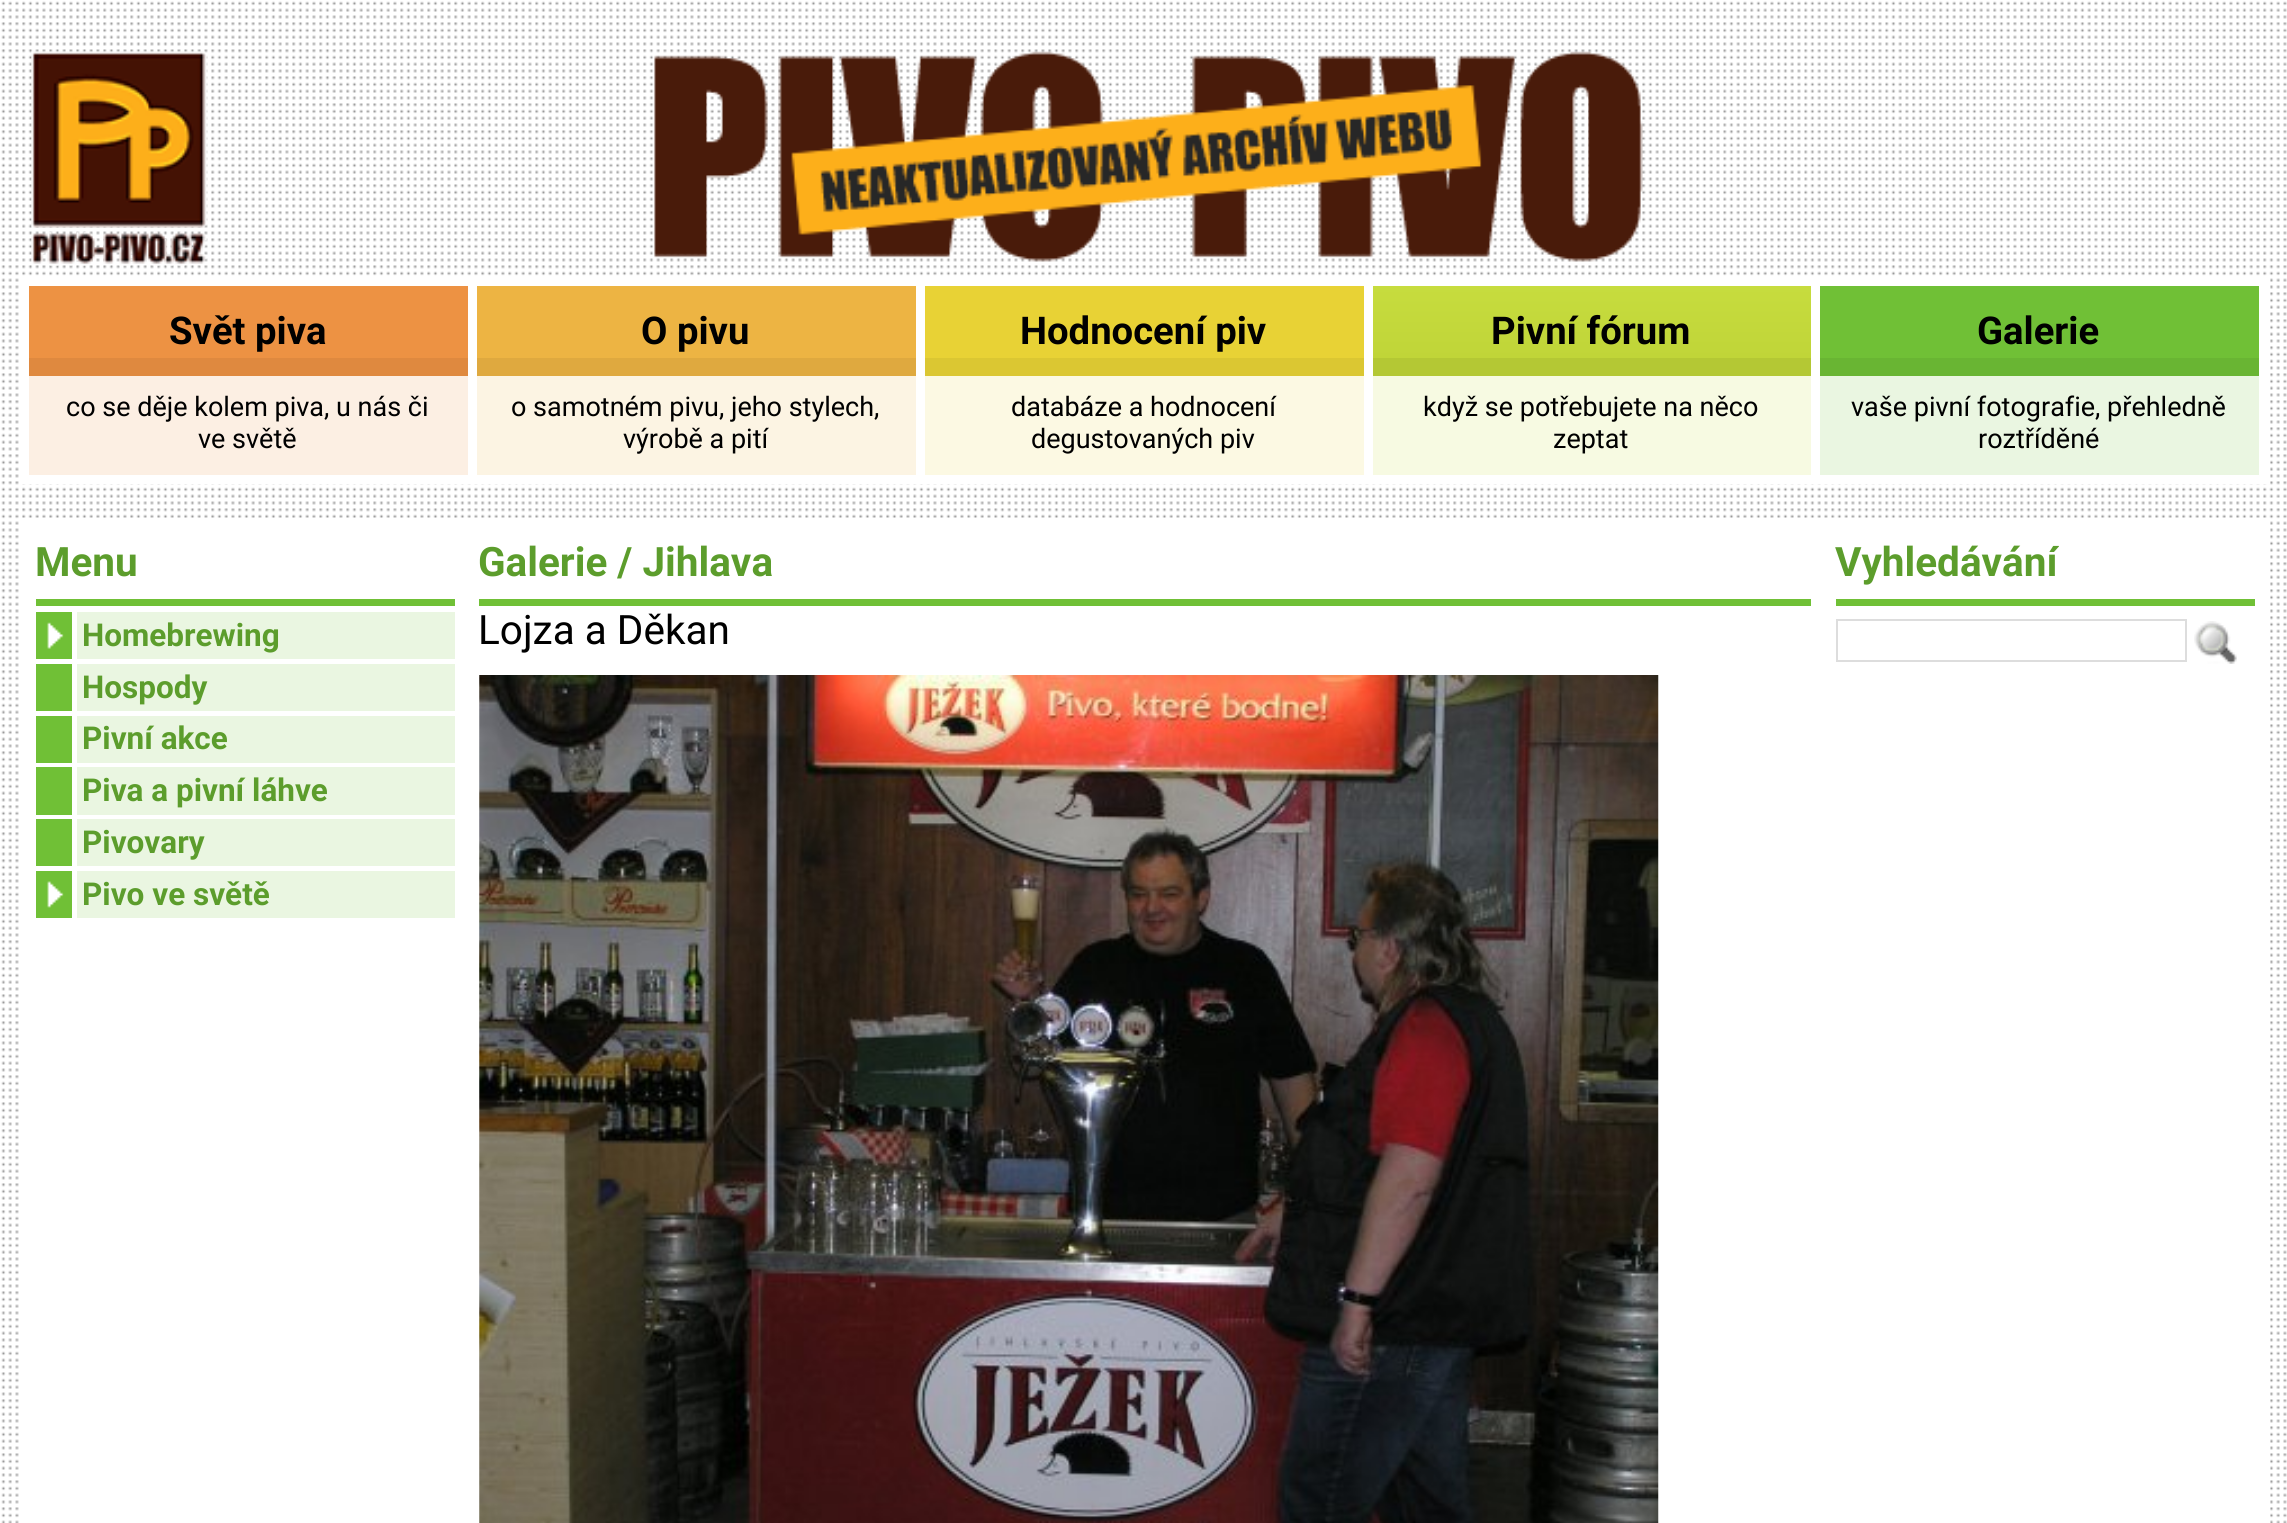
import math
import cairo

surface = cairo.ImageSurface(cairo.Format.RGB24, 2287, 1523)
ctx = cairo.Context(surface)
options = cairo.FontOptions()
options.set_hint_metrics(cairo.HintMetrics.OFF)
options.set_hint_style(cairo.HintStyle.NONE)
ctx.set_font_options(options)
ctx.set_miter_limit(4)


def ink(r, g, b):
    ctx.set_source_rgb(r / 255, g / 255, b / 255)


def write(x, y, s, family, size, color, bold=False, italic=False):
    ctx.select_font_face(family, cairo.FontSlant.ITALIC if italic else cairo.FontSlant.NORMAL, cairo.FontWeight.BOLD if bold else cairo.FontWeight.NORMAL)
    ctx.set_font_size(size)
    ink(*color)
    ctx.move_to(x, y)
    ctx.show_text(s)


def block(x, y, w, h, *color):
    ink(*color)
    ctx.rectangle(x, y, w, h)
    ctx.fill()


def paste(path, x, y, w, h):
    ctx.save()
    ctx.set_source_surface(cairo.ImageSurface.create_from_png(path), x, y)
    ctx.rectangle(x, y, w, h)
    ctx.fill()
    ctx.restore()


s1 = dict(family="Roboto", size=38.25, color=(0, 0, 0), bold=True)
s2 = dict(family="Roboto", size=27, color=(0, 0, 0))
s3 = dict(family="Roboto", size=40.5, color=(92, 157, 44), bold=True)
s4 = dict(family="Roboto", size=31.5, color=(92, 157, 44), bold=True)
s5 = dict(family="Roboto", size=40.5, color=(0, 0, 0))

ink(255, 255, 255)
ctx.paint()
paste("pic1.png", 1, 1, 2286, 1522)
paste("pic2.png", 31, 51, 177, 216)
paste("pic3.png", 654, 51, 989, 211)
block(22, 278, 2248, 206, 255, 255, 255)
block(29, 286, 439, 72, 237, 146, 67)
block(29, 358, 439, 18, 223, 137, 63)
write(169, 344, "Svět piva", **s1)
block(29, 376, 439, 99, 252, 239, 227)
write(66, 416, "co se děje kolem piva, u nás či", **s2)
write(198, 448, "ve světě", **s2)
block(477, 286, 439, 72, 237, 180, 67)
block(477, 358, 439, 18, 223, 169, 63)
write(641, 344, "O pivu", **s1)
block(477, 376, 439, 99, 252, 244, 227)
write(511, 416, "o samotném pivu, jeho stylech,", **s2)
write(623, 448, "výrobě a pití", **s2)
block(925, 286, 439, 72, 232, 210, 53)
block(925, 358, 439, 18, 219, 199, 50)
write(1020, 344, "Hodnocení piv", **s1)
block(925, 376, 439, 99, 252, 249, 227)
write(1011, 416, "databáze a hodnocení", **s2)
write(1031, 448, "degustovaných piv", **s2)
gradient = cairo.LinearGradient(1592, 286, 1592, 376)
gradient.add_color_stop_rgba(0, 0.78, 0.863, 0.243, 1)
gradient.add_color_stop_rgba(0.8, 0.753, 0.835, 0.22, 1)
gradient.add_color_stop_rgba(0.8, 0.706, 0.784, 0.204, 1)
gradient.add_color_stop_rgba(1, 0.706, 0.784, 0.204, 1)
ctx.set_source(gradient)
ctx.rectangle(1373, 286, 438, 90)
ctx.fill()
write(1491, 344, "Pivní fórum", **s1)
block(1373, 376, 438, 99, 247, 250, 226)
write(1423, 416, "když se potřebujete na něco", **s2)
write(1553, 448, "zeptat", **s2)
block(1820, 286, 439, 72, 112, 192, 54)
block(1820, 358, 439, 18, 105, 181, 51)
write(1977, 344, "Galerie", **s1)
block(1820, 376, 439, 99, 234, 246, 225)
write(1851, 416, "vaše pivní fotografie, přehledně", **s2)
write(1978, 448, "roztříděné", **s2)
block(22, 518, 2248, 1005, 255, 255, 255)
block(36, 599, 419, 7, 112, 192, 54)
write(35, 576, "Menu", **s3)
block(36, 612, 36, 47, 112, 192, 54)
block(77, 612, 378, 47, 234, 246, 225)
paste("pic4.png", 47, 622, 17, 27)
write(82, 646, "Homebrewing", **s4)
block(36, 664, 36, 47, 112, 192, 54)
block(77, 664, 378, 47, 234, 246, 225)
write(82, 698, "Hospody", **s4)
block(36, 716, 36, 47, 112, 192, 54)
block(77, 716, 378, 47, 234, 246, 225)
write(82, 749, "Pivní akce", **s4)
block(36, 767, 36, 48, 112, 192, 54)
block(77, 767, 378, 48, 234, 246, 225)
write(82, 801, "Piva a pivní láhve", **s4)
block(36, 819, 36, 47, 112, 192, 54)
block(77, 819, 378, 47, 234, 246, 225)
write(82, 853, "Pivovary", **s4)
block(36, 871, 36, 47, 112, 192, 54)
block(77, 871, 378, 47, 234, 246, 225)
paste("pic5.png", 47, 881, 17, 27)
write(82, 905, "Pivo ve světě", **s4)
block(479, 599, 1332, 7, 112, 192, 54)
write(478, 576, "Galerie / Jihlava", **s3)
write(478, 644, "Lojza a Děkan", **s5)
paste("pic6.png", 479, 675, 1180, 848)
block(1836, 599, 419, 7, 112, 192, 54)
write(1835, 576, "Vyhledávání", **s3)
ctx.rectangle(1837, 620, 349, 41)
ink(221, 221, 221)
ctx.stroke()
paste("pic7.png", 2194, 621, 43, 43)
surface.write_to_png("screenshot.png")
